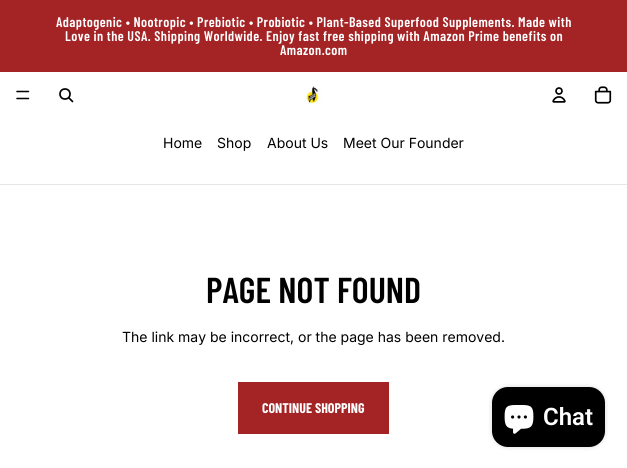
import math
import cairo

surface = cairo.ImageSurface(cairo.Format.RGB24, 627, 468)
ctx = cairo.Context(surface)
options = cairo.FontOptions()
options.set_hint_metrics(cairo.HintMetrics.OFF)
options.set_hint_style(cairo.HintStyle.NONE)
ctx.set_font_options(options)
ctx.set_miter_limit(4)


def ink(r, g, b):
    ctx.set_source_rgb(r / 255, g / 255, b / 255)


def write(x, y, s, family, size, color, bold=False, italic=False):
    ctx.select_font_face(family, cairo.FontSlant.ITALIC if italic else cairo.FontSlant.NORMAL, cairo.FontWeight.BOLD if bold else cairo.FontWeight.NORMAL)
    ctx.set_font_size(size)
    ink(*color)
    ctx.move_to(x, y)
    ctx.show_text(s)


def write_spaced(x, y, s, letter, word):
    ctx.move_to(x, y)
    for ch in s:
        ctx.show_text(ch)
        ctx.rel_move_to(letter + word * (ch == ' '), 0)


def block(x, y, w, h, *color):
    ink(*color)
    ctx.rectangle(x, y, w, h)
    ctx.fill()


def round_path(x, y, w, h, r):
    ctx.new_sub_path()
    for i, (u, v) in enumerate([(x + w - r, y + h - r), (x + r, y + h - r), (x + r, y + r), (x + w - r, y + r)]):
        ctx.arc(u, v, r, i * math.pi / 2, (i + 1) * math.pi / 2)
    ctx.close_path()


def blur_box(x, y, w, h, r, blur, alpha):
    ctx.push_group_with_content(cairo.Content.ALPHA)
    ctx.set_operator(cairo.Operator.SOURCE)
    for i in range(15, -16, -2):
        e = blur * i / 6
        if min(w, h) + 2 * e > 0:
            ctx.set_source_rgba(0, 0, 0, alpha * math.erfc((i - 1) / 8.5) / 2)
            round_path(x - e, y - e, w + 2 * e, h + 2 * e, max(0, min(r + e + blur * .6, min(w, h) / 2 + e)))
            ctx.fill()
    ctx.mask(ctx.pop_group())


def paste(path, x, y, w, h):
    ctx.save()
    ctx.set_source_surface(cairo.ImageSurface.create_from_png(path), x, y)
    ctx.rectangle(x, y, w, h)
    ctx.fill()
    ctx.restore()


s1 = dict(family="Inter", size=14, color=(0, 0, 0))
s2 = dict(family="Barlow Condensed SemiBold", size=36, color=(0, 0, 0))
s3 = dict(family="Barlow Condensed", size=14, color=(255, 255, 255), bold=True)
s4 = dict(family="Roboto SemiBold", size=24, color=(255, 255, 255))

ink(255, 255, 255)
ctx.paint()
block(0, 0, 627, 72, 164, 35, 37)
ctx.select_font_face("Barlow Condensed SemiBold")
ctx.set_font_size(14)
ink(255, 255, 255)
write_spaced(56, 27, "Adaptogenic • Nootropic • Prebiotic • Probiotic • Plant-Based Superfood Supplements. Made with", 0.42, 0)
write_spaced(65, 41, "Love in the USA. Shipping Worldwide. Enjoy fast free shipping with Amazon Prime benefits on", 0.42, 0)
write_spaced(280, 55, "Amazon.com", 0.42, 0)
ctx.new_path()
ctx.move_to(17, 91.5)
ctx.line_to(28.5, 91.5)
ctx.move_to(17, 98.5)
ctx.line_to(28.5, 98.5)
ink(0, 0, 0)
ctx.set_line_width(1.5)
ctx.set_line_cap(cairo.LineCap.ROUND)
ctx.stroke()
ctx.arc(65, 94, 5, 0, 2 * math.pi)
ctx.set_line_width(1.7)
ctx.set_line_cap(cairo.LineCap.BUTT)
ctx.stroke()
ctx.new_path()
ctx.move_to(69, 98)
ctx.line_to(72.5, 101.5)
ctx.set_line_cap(cairo.LineCap.ROUND)
ctx.set_line_join(cairo.LineJoin.ROUND)
ctx.stroke()
paste("pic1.png", 305, 86, 17, 18)
paste("pic2.png", 552, 87, 14, 16)
paste("pic3.png", 594, 86, 18, 18)
write(163, 148, "Home", **s1)
write(217, 148, "Shop", **s1)
write(267, 148, "About Us", **s1)
write(343, 148, "Meet Our Founder", **s1)
block(0, 184, 627, 1, 230, 230, 230)
write(206, 303, "PAGE NOT FOUND", **s2)
write(122, 342, "The link may be incorrect, or the page has been removed.", **s1)
block(238, 382, 151, 52, 164, 35, 37)
write(262, 413, "CONTINUE SHOPPING", **s3)
ink(0, 0, 0)
blur_box(492, 387, 113, 60, 16, 2.5, 0.15)
ink(0, 0, 0)
round_path(492, 387, 113, 60, 16)
ctx.fill()
paste("pic4.png", 504, 405, 30, 29)
write(543, 425, "Chat", **s4)
surface.write_to_png("screenshot.png")
